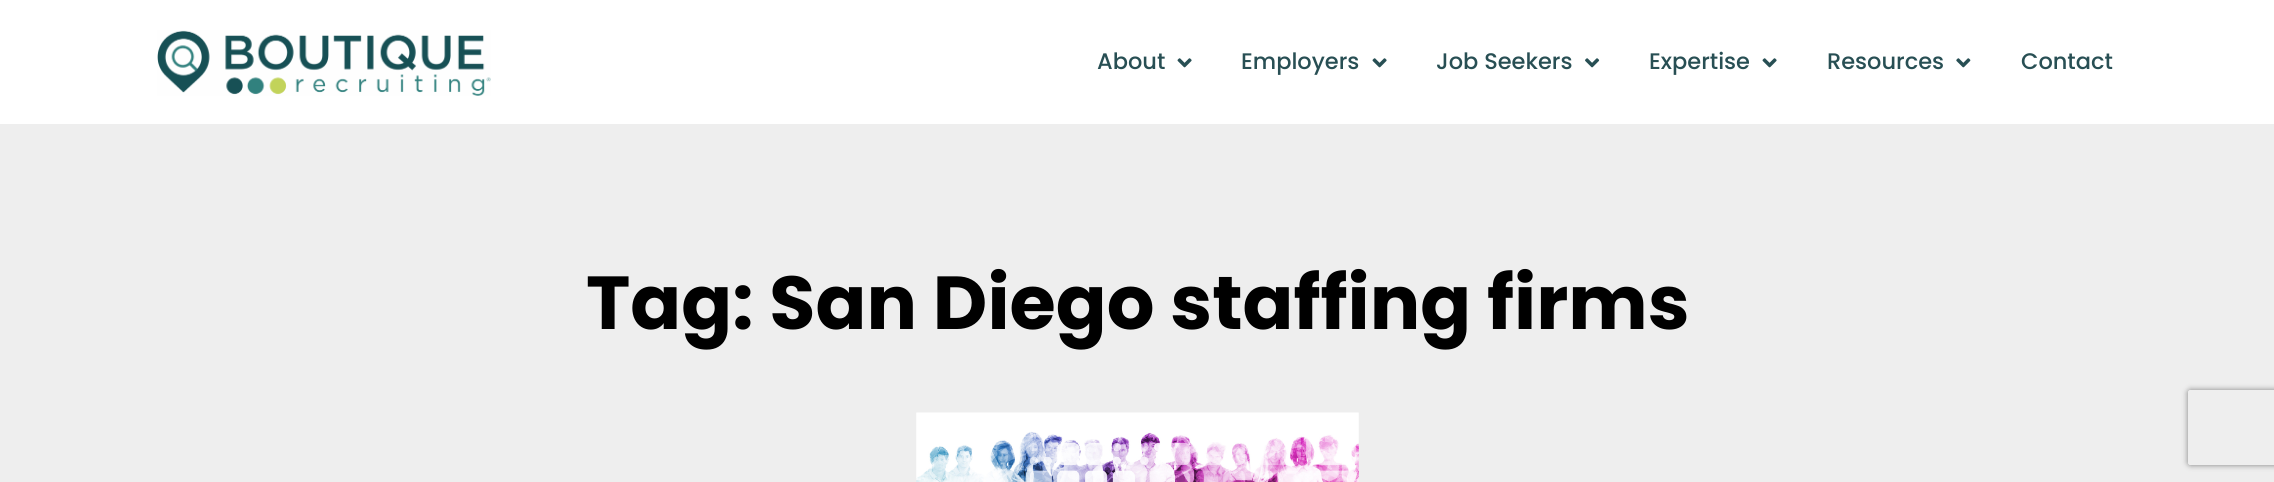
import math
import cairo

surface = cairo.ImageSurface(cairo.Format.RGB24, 2274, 482)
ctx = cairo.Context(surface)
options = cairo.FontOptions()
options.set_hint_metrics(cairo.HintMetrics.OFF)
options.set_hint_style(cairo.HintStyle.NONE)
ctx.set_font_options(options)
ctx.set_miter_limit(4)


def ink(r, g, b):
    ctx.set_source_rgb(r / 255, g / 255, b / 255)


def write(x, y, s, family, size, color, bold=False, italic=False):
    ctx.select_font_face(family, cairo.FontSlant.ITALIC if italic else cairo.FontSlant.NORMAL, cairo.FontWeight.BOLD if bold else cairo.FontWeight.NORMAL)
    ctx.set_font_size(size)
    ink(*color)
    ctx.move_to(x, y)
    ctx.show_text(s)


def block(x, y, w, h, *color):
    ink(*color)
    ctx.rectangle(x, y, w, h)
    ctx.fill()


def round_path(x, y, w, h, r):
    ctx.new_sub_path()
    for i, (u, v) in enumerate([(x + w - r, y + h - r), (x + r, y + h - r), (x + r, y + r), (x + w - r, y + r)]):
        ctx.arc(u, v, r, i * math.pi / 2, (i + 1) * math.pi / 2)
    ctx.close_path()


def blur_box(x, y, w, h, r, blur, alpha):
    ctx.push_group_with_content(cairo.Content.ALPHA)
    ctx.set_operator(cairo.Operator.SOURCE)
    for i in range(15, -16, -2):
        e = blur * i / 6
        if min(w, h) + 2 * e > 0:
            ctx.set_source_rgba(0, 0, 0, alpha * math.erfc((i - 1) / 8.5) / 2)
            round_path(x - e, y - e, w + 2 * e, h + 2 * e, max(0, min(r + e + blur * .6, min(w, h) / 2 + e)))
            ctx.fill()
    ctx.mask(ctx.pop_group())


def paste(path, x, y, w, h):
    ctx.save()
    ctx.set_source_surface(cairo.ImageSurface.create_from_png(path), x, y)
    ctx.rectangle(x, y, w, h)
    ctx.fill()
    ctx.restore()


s1 = dict(family="Poppins Medium", size=22.5, color=(40, 79, 84))
s2 = dict(family="Poppins", size=75, color=(0, 0, 0), bold=True)

ink(255, 255, 255)
ctx.paint()
paste("pic1.png", 157, 30, 334, 66)
write(1097, 69, "About", **s1)
paste("pic2.png", 1177, 58, 15, 10)
write(1241, 69, "Employers", **s1)
paste("pic2.png", 1372, 58, 15, 10)
write(1436, 69, "Job Seekers", **s1)
paste("pic3.png", 1585, 58, 15, 10)
write(1649, 69, "Expertise", **s1)
paste("pic2.png", 1762, 58, 15, 10)
write(1827, 69, "Resources", **s1)
paste("pic4.png", 1956, 58, 15, 10)
write(2021, 69, "Contact", **s1)
block(0, 124, 2274, 358, 238, 238, 238)
write(586, 329, "Tag: San Diego staffing firms", **s2)
paste("pic5.png", 916, 412, 443, 70)
ctx.save()
ctx.set_fill_rule(cairo.FillRule.EVEN_ODD)
ctx.new_path()
ctx.move_to(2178, 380)
ctx.line_to(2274, 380)
ctx.line_to(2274, 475)
ctx.line_to(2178, 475)
ctx.close_path()
ctx.move_to(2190.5, 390)
ctx.line_to(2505.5, 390)
ctx.curve_to(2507, 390, 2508, 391, 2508, 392.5)
ctx.line_to(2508, 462.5)
ctx.curve_to(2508, 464, 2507, 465, 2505.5, 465)
ctx.line_to(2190.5, 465)
ctx.curve_to(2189, 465, 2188, 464, 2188, 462.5)
ctx.line_to(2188, 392.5)
ctx.curve_to(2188, 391, 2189, 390, 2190.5, 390)
ctx.close_path()
ctx.clip()
ink(128, 128, 128)
blur_box(2188, 390, 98, 75, 2.5, 3, 1)
ctx.restore()
surface.write_to_png("screenshot.png")
